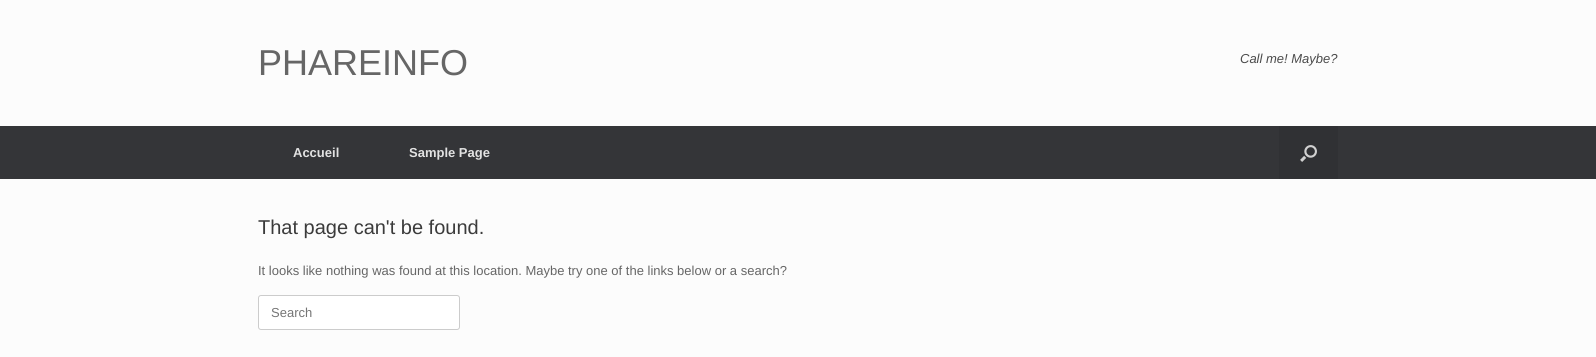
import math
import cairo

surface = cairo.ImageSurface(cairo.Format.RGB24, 1596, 357)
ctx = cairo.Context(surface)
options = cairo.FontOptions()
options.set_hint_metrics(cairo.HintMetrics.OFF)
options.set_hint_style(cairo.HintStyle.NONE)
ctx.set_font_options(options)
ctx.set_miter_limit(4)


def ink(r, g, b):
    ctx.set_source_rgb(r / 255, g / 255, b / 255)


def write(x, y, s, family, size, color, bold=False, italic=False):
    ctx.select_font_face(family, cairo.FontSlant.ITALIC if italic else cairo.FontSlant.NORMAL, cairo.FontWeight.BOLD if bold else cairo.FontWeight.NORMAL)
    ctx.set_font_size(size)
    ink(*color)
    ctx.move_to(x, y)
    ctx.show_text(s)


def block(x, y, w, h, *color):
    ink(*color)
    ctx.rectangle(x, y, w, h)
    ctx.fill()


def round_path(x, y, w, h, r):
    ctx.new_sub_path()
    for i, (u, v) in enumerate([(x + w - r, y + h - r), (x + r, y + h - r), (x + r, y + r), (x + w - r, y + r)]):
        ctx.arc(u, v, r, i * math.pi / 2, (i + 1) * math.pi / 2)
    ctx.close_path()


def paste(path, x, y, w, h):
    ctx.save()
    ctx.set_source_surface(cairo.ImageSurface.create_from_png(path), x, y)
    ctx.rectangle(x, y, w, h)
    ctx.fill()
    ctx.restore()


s1 = dict(family="Liberation Sans", size=36, color=(102, 102, 102))
s2 = dict(family="Liberation Sans", size=13, color=(75, 75, 75), italic=True)
s3 = dict(family="Liberation Sans", size=13, color=(226, 226, 226), bold=True)
s4 = dict(family="Liberation Sans", size=20, color=(59, 59, 59))
s5 = dict(family="Liberation Sans", size=13, color=(102, 102, 102))
s6 = dict(family="Liberation Sans", size=13, color=(117, 117, 117))

ink(252, 252, 252)
ctx.paint()
write(258, 75, "PHAREINFO", **s1)
write(1240, 63, "Call me! Maybe?", **s2)
block(0, 126, 1596, 53, 52, 53, 56)
write(293, 157, "Accueil", **s3)
write(409, 157, "Sample Page", **s3)
block(1279, 126, 59, 53, 48, 49, 52)
paste("pic1.png", 1300, 145, 17, 17)
write(258, 234, "That page can't be found.", **s4)
write(258, 275, "It looks like nothing was found at this location. Maybe try one of the links below or a search?", **s5)
ink(255, 255, 255)
round_path(258.5, 295.5, 201, 34, 2.5)
ctx.fill_preserve()
ink(204, 204, 204)
ctx.set_line_width(1)
ctx.stroke()
write(271, 317, "Search", **s6)
surface.write_to_png("screenshot.png")
